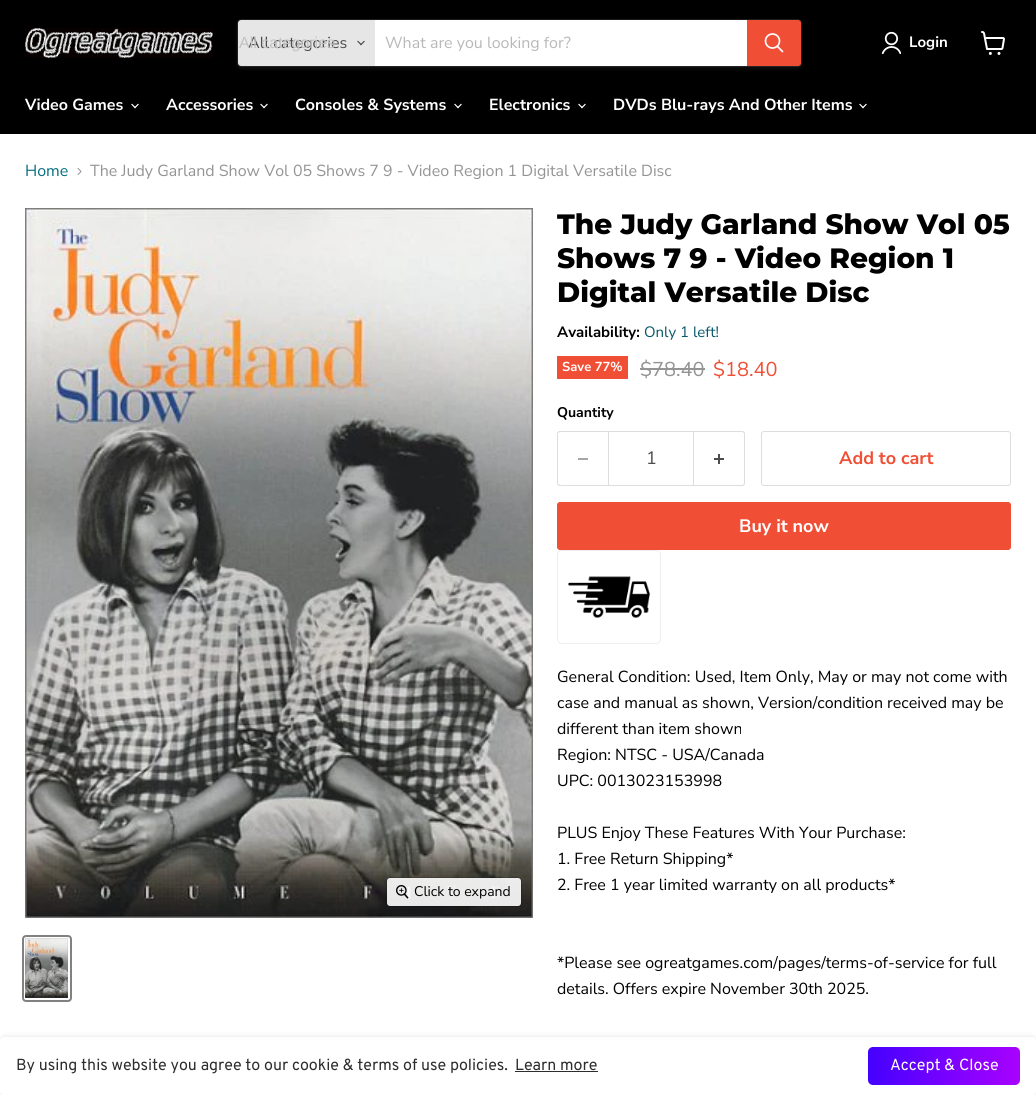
import math
import cairo

surface = cairo.ImageSurface(cairo.Format.RGB24, 1036, 1095)
ctx = cairo.Context(surface)
options = cairo.FontOptions()
options.set_hint_metrics(cairo.HintMetrics.OFF)
options.set_hint_style(cairo.HintStyle.NONE)
ctx.set_font_options(options)
ctx.set_miter_limit(4)


def ink(r, g, b):
    ctx.set_source_rgb(r / 255, g / 255, b / 255)


def write(x, y, s, family, size, color, bold=False, italic=False):
    ctx.select_font_face(family, cairo.FontSlant.ITALIC if italic else cairo.FontSlant.NORMAL, cairo.FontWeight.BOLD if bold else cairo.FontWeight.NORMAL)
    ctx.set_font_size(size)
    ink(*color)
    ctx.move_to(x, y)
    ctx.show_text(s)


def block(x, y, w, h, *color):
    ink(*color)
    ctx.rectangle(x, y, w, h)
    ctx.fill()


def round_path(x, y, w, h, r):
    ctx.new_sub_path()
    for i, (u, v) in enumerate([(x + w - r, y + h - r), (x + r, y + h - r), (x + r, y + r), (x + w - r, y + r)]):
        ctx.arc(u, v, r, i * math.pi / 2, (i + 1) * math.pi / 2)
    ctx.close_path()


def blur_box(x, y, w, h, r, blur, alpha):
    ctx.push_group_with_content(cairo.Content.ALPHA)
    ctx.set_operator(cairo.Operator.SOURCE)
    for i in range(15, -16, -2):
        e = blur * i / 6
        if min(w, h) + 2 * e > 0:
            ctx.set_source_rgba(0, 0, 0, alpha * math.erfc((i - 1) / 8.5) / 2)
            round_path(x - e, y - e, w + 2 * e, h + 2 * e, max(0, min(r + e + blur * .6, min(w, h) / 2 + e)))
            ctx.fill()
    ctx.mask(ctx.pop_group())


def paste(path, x, y, w, h):
    ctx.save()
    ctx.set_source_surface(cairo.ImageSurface.create_from_png(path), x, y)
    ctx.rectangle(x, y, w, h)
    ctx.fill()
    ctx.restore()


s1 = dict(family="Nunito Sans", size=16, color=(77, 77, 77))
s2 = dict(family="Liberation Sans", size=16, color=(194, 194, 194))
s3 = dict(family="Nunito Sans", size=16, color=(184, 184, 184))
s4 = dict(family="Nunito Sans", size=15, color=(255, 255, 255), bold=True)
s5 = dict(family="Nunito Sans", size=16, color=(255, 255, 255), bold=True)
s6 = dict(family="Nunito Sans", size=16, color=(4, 110, 130))
s7 = dict(family="Nunito Sans", size=16, color=(148, 148, 148))
s8 = dict(family="Nunito Sans", size=14, color=(0, 0, 0))
s9 = dict(family="Montserrat ExtraBold", size=28, color=(0, 0, 0))
s10 = dict(family="Nunito Sans", size=15, color=(0, 0, 0), bold=True)
s11 = dict(family="Nunito Sans", size=15, color=(7, 88, 104))
s12 = dict(family="Nunito Sans", size=13, color=(255, 255, 255), bold=True)
s13 = dict(family="Nunito Sans", size=20, color=(148, 148, 148))
s14 = dict(family="Nunito Sans", size=20, color=(240, 79, 54))
s15 = dict(family="Nunito Sans", size=14, color=(0, 0, 0), bold=True)
s16 = dict(family="Nunito Sans", size=18, color=(77, 77, 77))
s17 = dict(family="Nunito Sans", size=18, color=(240, 79, 54), bold=True)
s18 = dict(family="Nunito Sans", size=18, color=(255, 255, 255), bold=True)
s19 = dict(family="Nunito Sans", size=16, color=(0, 0, 0))
s20 = dict(family="Overpass", size=16, color=(45, 45, 45))
s21 = dict(family="Overpass", size=16, color=(255, 255, 255))

ink(255, 255, 255)
ctx.paint()
block(0, 0, 1036, 134, 0, 0, 0)
paste("pic1.png", 25, 28, 188, 30)
ink(128, 128, 128)
blur_box(237, 21, 565, 48, 4, 1.5, 0.11)
round_path(237.5, 19.5, 564, 47, 3.5)
ctx.set_source_rgba(0.502, 0.502, 0.502, 0.2)
ctx.set_line_width(1)
ctx.stroke()
ink(230, 230, 230)
ctx.new_path()
ctx.move_to(241, 20)
ctx.line_to(375, 20)
ctx.line_to(375, 66)
ctx.line_to(241, 66)
ctx.curve_to(239.5, 66, 238, 64.5, 238, 63)
ctx.line_to(238, 23)
ctx.curve_to(238, 21.5, 239.5, 20, 241, 20)
ctx.close_path()
ctx.fill()
write(248, 48, "All categories", **s1)
write(239, 48, "All categories", **s2)
paste("pic2.png", 357, 40, 8, 6)
block(375, 20, 372, 46, 255, 255, 255)
write(385, 48, "What are you looking for?", **s3)
ink(240, 79, 54)
ctx.new_path()
ctx.move_to(747.5, 20.5)
ctx.line_to(798, 20.5)
ctx.curve_to(799.5, 20.5, 800.5, 21.5, 800.5, 23)
ctx.line_to(800.5, 63)
ctx.curve_to(800.5, 64.5, 799.5, 65.5, 798, 65.5)
ctx.line_to(747.5, 65.5)
ctx.close_path()
ctx.fill_preserve()
ctx.stroke()
ctx.new_path()
ctx.move_to(782.5, 51.5)
ctx.line_to(777.5, 46.5)
ink(255, 255, 255)
ctx.set_line_width(1.7)
ctx.set_line_cap(cairo.LineCap.ROUND)
ctx.stroke()
ctx.arc(772.5, 41, 7, 0, 2 * math.pi)
ctx.set_line_cap(cairo.LineCap.BUTT)
ctx.stroke()
paste("pic3.png", 881, 31, 20, 24)
write(909, 47, "Login", **s4)
paste("pic4.png", 981, 31, 24, 24)
write(25, 110, "Video Games", **s5)
paste("pic5.png", 131, 103, 8, 6)
write(166, 110, "Accessories", **s5)
paste("pic5.png", 260, 103, 8, 6)
write(295, 110, "Consoles & Systems", **s5)
paste("pic5.png", 454, 103, 8, 6)
write(489, 110, "Electronics", **s5)
paste("pic5.png", 578, 103, 8, 6)
write(613, 110, "DVDs Blu-rays And Other Items", **s5)
paste("pic5.png", 859, 103, 8, 6)
write(25, 176, "Home", **s6)
paste("pic6.png", 77, 168, 5, 7)
write(90, 176, "The Judy Garland Show Vol 05 Shows 7 9 - Video Region 1 Digital Versatile Disc", **s7)
paste("pic7.png", 25, 208, 508, 710)
round_path(386.5, 877.5, 135, 29, 3.5)
ctx.set_source_rgba(0, 0, 0, 0.15)
ctx.set_line_width(1)
ctx.stroke()
ctx.set_source_rgba(1, 1, 1, 0.9)
round_path(387, 878, 134, 28, 3)
ctx.fill()
paste("pic8.png", 396, 885, 13, 14)
write(414, 896, "Click to expand", **s8)
round_path(23, 936, 48, 65, 3)
ink(129, 129, 129)
ctx.set_line_width(2)
ctx.stroke()
paste("pic9.png", 25, 938, 43, 60)
write(557, 234, "The Judy Garland Show Vol 05", **s9)
write(557, 268, "Shows 7 9 - Video Region 1", **s9)
write(557, 302, "Digital Versatile Disc", **s9)
write(557, 337, "Availability:", **s10)
write(644, 337, "Only 1 left!", **s11)
block(557, 356, 71, 23, 240, 79, 54)
write(562, 371, "Save 77%", **s12)
write(640, 376, "$78.40", **s13)
block(640, 368, 65, 2, 148, 148, 148)
write(713, 376, "$18.40", **s14)
write(557, 417, "Quantity", **s15)
ink(221, 221, 221)
ctx.set_fill_rule(cairo.FillRule.EVEN_ODD)
ctx.new_path()
ctx.move_to(560, 431)
ctx.line_to(608, 431)
ctx.line_to(608, 486)
ctx.line_to(560, 486)
ctx.curve_to(558, 486, 557, 485, 557, 483)
ctx.line_to(557, 434)
ctx.curve_to(557, 432, 558, 431, 560, 431)
ctx.close_path()
ctx.move_to(560, 432)
ctx.line_to(608, 432)
ctx.line_to(608, 485)
ctx.line_to(568, 485)
ctx.curve_to(564, 485, 558, 486, 558, 483)
ctx.line_to(558, 433)
ctx.close_path()
ctx.fill()
block(578, 458, 10, 2, 166, 166, 166)
ctx.rectangle(608.5, 431.5, 85, 54)
ink(221, 221, 221)
ctx.set_line_width(1)
ctx.stroke()
write(646, 464, "1", **s16)
ink(221, 221, 221)
ctx.new_path()
ctx.move_to(694, 431)
ctx.line_to(742, 431)
ctx.curve_to(744, 431, 745, 432, 745, 434)
ctx.line_to(745, 483)
ctx.curve_to(745, 485, 744, 486, 742, 486)
ctx.line_to(694, 486)
ctx.close_path()
ctx.move_to(694, 432)
ctx.line_to(742, 432)
ctx.curve_to(743, 432, 744, 433, 744, 434)
ctx.line_to(744, 483)
ctx.curve_to(744, 484, 743, 485, 742, 485)
ctx.line_to(694, 485)
ctx.close_path()
ctx.fill()
paste("pic10.png", 714, 454, 10, 10)
round_path(761.5, 431.5, 249, 54, 2.5)
ctx.stroke()
write(839, 464, "Add to cart", **s17)
round_path(557.5, 502.5, 453, 47, 2.5)
ctx.fill_preserve()
ctx.stroke()
write(739, 532, "Buy it now", **s18)
round_path(557.5, 550.5, 103, 93, 4.5)
ink(238, 238, 238)
ctx.stroke()
paste("pic11.png", 568, 576, 82, 42)
write(557, 682, "General Condition: Used, Item Only, May or may not come with", **s19)
write(557, 708, "case and manual as shown, Version/condition received may be", **s19)
write(557, 734, "different than item shown", **s19)
write(557, 760, "Region: NTSC - USA/Canada", **s19)
write(557, 786, "UPC: 0013023153998", **s19)
write(557, 838, "PLUS Enjoy These Features With Your Purchase:", **s19)
write(557, 864, "1. Free Return Shipping*", **s19)
write(557, 890, "2. Free 1 year limited warranty on all products*", **s19)
write(557, 968, "*Please see ogreatgames.com/pages/terms-of-service for full", **s19)
write(557, 994, "details. Offers expire November 30th 2025.", **s19)
ctx.save()
ctx.new_path()
ctx.move_to(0, 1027)
ctx.line_to(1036, 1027)
ctx.line_to(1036, 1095)
ctx.line_to(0, 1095)
ctx.close_path()
ctx.move_to(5, 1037)
ctx.line_to(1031, 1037)
ctx.curve_to(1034, 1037, 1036, 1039, 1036, 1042)
ctx.line_to(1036, 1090)
ctx.curve_to(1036, 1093, 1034, 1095, 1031, 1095)
ctx.line_to(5, 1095)
ctx.curve_to(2, 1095, 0, 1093, 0, 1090)
ctx.line_to(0, 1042)
ctx.curve_to(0, 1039, 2, 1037, 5, 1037)
ctx.close_path()
ctx.clip()
ink(0, 0, 0)
blur_box(0, 1037, 1036, 58, 5, 3, 0.12)
ctx.restore()
write(16, 1070, "By using this website you agree to our cookie & terms of use policies.", **s20)
write(515, 1070, "Learn more", **s20)
block(515, 1071, 83, 1, 45, 45, 45)
gradient = cairo.LinearGradient(868, 1066, 1020, 1066)
gradient.add_color_stop_rgba(0, 0.267, 0.004, 1, 1)
gradient.add_color_stop_rgba(1, 0.663, 0.004, 1, 1)
ctx.set_source(gradient)
round_path(868, 1047, 152, 38, 5)
ctx.fill()
write(890, 1070, "Accept & Close", **s21)
surface.write_to_png("screenshot.png")
